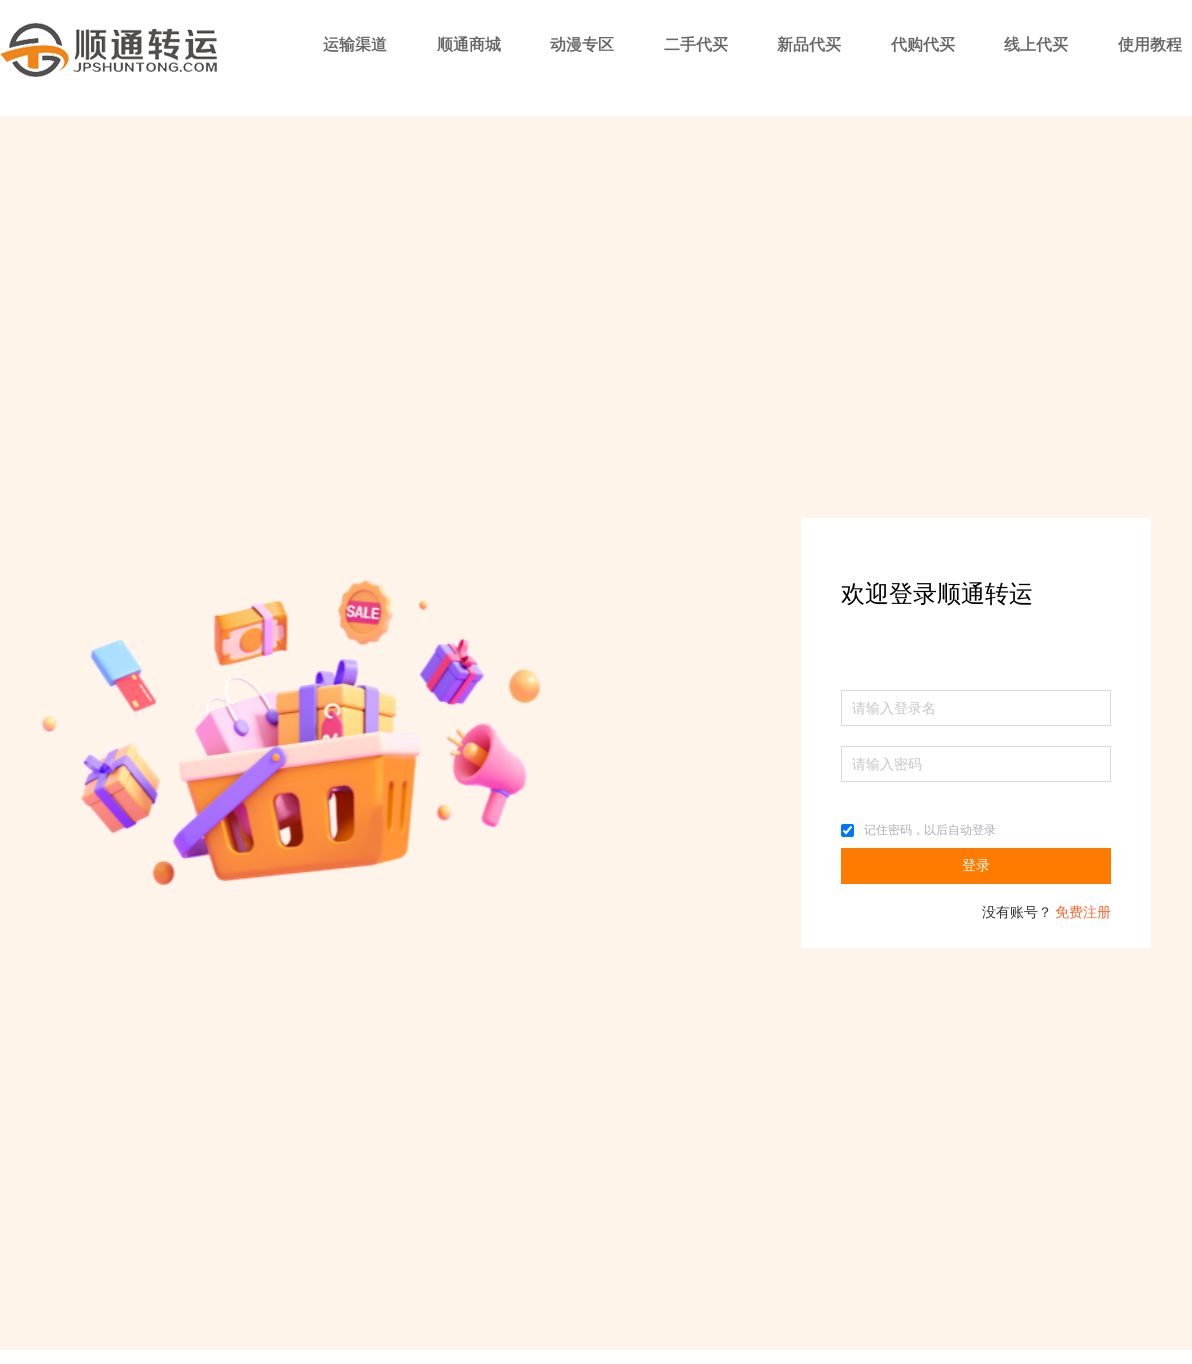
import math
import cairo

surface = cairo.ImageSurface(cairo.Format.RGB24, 1192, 1364)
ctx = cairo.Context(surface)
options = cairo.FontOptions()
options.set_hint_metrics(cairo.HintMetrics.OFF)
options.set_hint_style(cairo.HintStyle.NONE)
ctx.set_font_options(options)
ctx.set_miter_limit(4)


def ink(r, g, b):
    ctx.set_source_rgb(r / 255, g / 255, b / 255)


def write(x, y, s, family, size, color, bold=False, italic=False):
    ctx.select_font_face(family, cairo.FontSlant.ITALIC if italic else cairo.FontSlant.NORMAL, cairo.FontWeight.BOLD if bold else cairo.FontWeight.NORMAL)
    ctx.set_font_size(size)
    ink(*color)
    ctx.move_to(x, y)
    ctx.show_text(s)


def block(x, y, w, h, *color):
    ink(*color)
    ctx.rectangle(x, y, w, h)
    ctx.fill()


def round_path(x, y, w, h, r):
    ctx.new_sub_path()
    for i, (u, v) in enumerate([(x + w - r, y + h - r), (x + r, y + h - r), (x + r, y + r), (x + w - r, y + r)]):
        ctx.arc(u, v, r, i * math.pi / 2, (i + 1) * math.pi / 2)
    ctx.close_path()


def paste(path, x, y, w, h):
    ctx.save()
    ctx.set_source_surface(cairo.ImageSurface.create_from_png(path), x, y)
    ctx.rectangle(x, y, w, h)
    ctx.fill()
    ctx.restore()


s1 = dict(family="WenQuanYi Zen Hei", size=16, color=(102, 102, 102), bold=True)
s2 = dict(family="WenQuanYi Zen Hei Medium", size=24, color=(0, 0, 0))
s3 = dict(family="WenQuanYi Zen Hei Medium", size=14, color=(197, 197, 197))
s4 = dict(family="WenQuanYi Zen Hei Medium", size=12, color=(175, 171, 178))
s5 = dict(family="WenQuanYi Zen Hei Medium", size=14, color=(255, 255, 255))
s6 = dict(family="WenQuanYi Zen Hei Medium", size=14, color=(51, 51, 51))
s7 = dict(family="WenQuanYi Zen Hei Medium", size=14, color=(248, 104, 52))

ink(255, 255, 255)
ctx.paint()
paste("pic1.png", 0, 23, 217, 54)
write(323, 50, "运输渠道", **s1)
write(437, 50, "顺通商城", **s1)
write(550, 50, "动漫专区", **s1)
write(664, 50, "二手代买", **s1)
write(777, 50, "新品代买", **s1)
write(891, 50, "代购代买", **s1)
write(1004, 50, "线上代买", **s1)
write(1118, 50, "使用教程", **s1)
block(0, 116, 1192, 1234, 255, 244, 234)
paste("pic2.png", 41, 580, 500, 306)
ink(255, 255, 255)
round_path(801, 518, 350, 430, 2)
ctx.fill()
write(841, 602, "欢迎登录顺通转运", **s2)
ctx.rectangle(841.5, 690.5, 269, 35)
ink(218, 218, 218)
ctx.set_line_width(1)
ctx.stroke()
write(852, 713, "请输入登录名", **s3)
ctx.rectangle(841.5, 746.5, 269, 35)
ink(218, 218, 218)
ctx.stroke()
write(852, 769, "请输入密码", **s3)
ink(0, 117, 255)
round_path(841, 824, 13, 13, 2)
ctx.fill()
ctx.new_path()
ctx.move_to(843.5, 830.5)
ctx.line_to(846, 833)
ctx.line_to(851.5, 826.5)
ink(255, 255, 255)
ctx.set_line_width(2.1)
ctx.stroke()
write(864, 834, "记住密码，以后自动登录", **s4)
block(841, 848, 270, 36, 255, 123, 0)
write(962, 870, "登录", **s5)
write(982, 917, "没有账号？", **s6)
write(1055, 917, "免费注册", **s7)
surface.write_to_png("screenshot.png")
